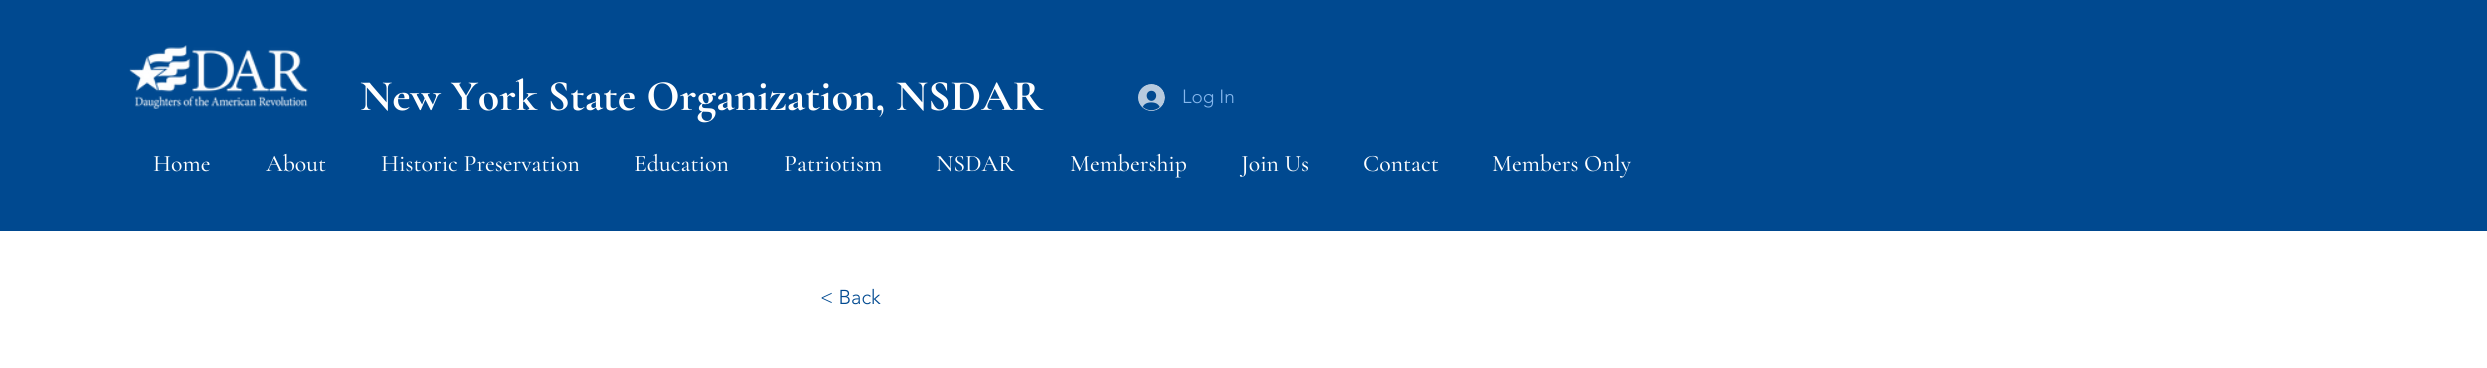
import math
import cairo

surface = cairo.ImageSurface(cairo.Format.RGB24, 2487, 368)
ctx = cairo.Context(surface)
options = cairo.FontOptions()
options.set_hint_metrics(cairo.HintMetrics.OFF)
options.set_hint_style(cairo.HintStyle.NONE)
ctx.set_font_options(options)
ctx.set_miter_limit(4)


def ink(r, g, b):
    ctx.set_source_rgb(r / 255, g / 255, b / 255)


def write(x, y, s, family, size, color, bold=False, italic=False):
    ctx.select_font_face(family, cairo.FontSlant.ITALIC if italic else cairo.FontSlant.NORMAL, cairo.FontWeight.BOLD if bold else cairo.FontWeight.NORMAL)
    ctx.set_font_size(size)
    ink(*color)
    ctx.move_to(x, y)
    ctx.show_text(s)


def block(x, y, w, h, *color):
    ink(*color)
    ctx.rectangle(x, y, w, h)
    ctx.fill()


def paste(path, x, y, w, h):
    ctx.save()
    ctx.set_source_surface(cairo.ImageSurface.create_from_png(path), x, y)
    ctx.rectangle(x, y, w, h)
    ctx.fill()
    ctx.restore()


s1 = dict(family="Cormorant Garamond", size=43.75, color=(255, 255, 255), bold=True)
s2 = dict(family="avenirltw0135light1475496 Light", size=19, color=(133, 183, 237))
s3 = dict(family="Cormorant Garamond Medium", size=23.75, color=(255, 255, 255))
s4 = dict(family="avenirltw0135light1475496 Light", size=20, color=(0, 73, 144))

ink(255, 255, 255)
ctx.paint()
block(0, 0, 2487, 231, 0, 73, 144)
paste("pic1.png", 129, 45, 179, 64)
write(360, 110, "New York State Organization, NSDAR", **s1)
paste("pic2.png", 1138, 84, 27, 27)
write(1182, 103, "Log In", **s2)
write(153, 171, "Home", **s3)
write(266, 171, "About", **s3)
write(381, 171, "Historic Preservation", **s3)
write(634, 171, "Education", **s3)
write(784, 171, "Patriotism", **s3)
write(936, 171, "NSDAR", **s3)
write(1070, 171, "Membership", **s3)
write(1241, 171, "Join Us", **s3)
write(1363, 171, "Contact", **s3)
write(1492, 171, "Members Only", **s3)
write(820, 304, "< Back", **s4)
surface.write_to_png("screenshot.png")
